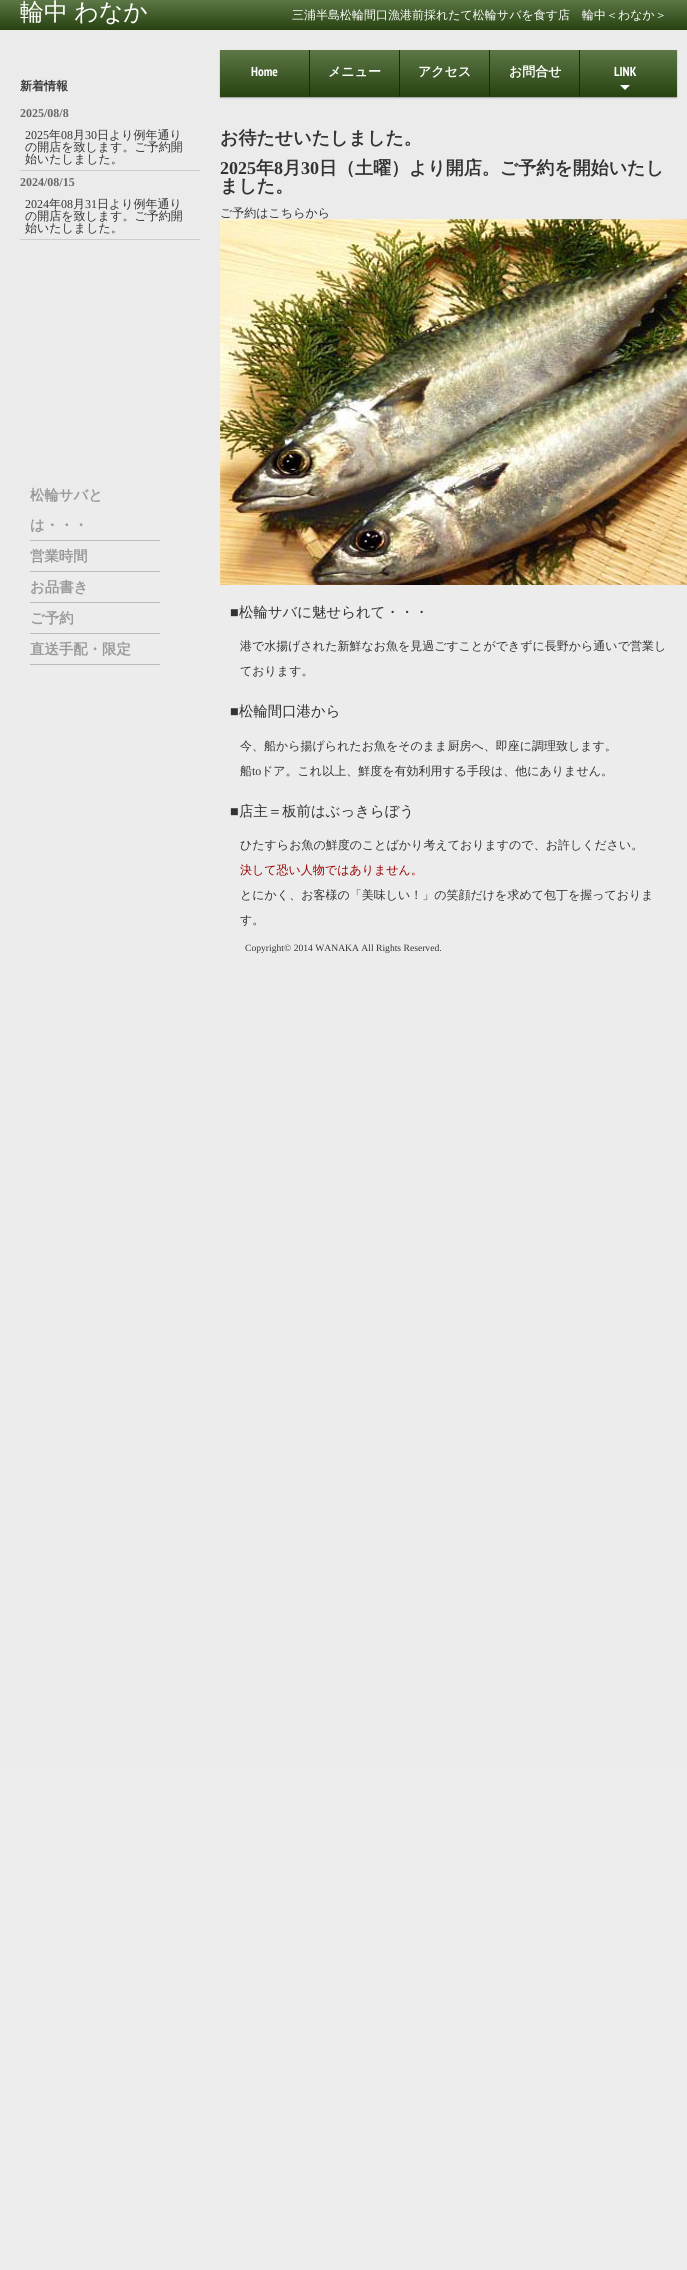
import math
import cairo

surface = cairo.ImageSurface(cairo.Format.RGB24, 687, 2270)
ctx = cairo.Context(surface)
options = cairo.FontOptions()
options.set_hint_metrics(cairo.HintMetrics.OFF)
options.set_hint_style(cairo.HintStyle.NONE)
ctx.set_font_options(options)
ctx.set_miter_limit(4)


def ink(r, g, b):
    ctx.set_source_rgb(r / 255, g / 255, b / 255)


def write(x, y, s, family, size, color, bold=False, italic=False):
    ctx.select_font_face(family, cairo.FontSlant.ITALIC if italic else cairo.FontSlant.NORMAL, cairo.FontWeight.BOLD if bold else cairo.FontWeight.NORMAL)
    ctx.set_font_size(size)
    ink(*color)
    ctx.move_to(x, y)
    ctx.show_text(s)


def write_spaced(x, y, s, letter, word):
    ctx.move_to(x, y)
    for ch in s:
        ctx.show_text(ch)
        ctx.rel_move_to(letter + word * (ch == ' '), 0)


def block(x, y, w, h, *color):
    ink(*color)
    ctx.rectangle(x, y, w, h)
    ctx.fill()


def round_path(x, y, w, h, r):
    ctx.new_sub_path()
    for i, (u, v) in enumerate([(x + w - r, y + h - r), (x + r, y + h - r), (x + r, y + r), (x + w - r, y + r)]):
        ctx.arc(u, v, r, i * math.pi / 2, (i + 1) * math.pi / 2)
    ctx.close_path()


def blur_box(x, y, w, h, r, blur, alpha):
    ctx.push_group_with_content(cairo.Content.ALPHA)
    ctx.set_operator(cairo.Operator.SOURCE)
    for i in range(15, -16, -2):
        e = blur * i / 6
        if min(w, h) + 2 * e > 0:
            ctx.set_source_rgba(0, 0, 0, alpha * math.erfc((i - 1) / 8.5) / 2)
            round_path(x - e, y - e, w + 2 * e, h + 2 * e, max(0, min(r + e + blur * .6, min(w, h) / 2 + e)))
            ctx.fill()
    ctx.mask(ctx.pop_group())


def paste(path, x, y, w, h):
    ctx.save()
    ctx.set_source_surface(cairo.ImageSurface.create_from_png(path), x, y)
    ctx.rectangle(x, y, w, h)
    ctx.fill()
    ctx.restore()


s1 = dict(family="WenQuanYi Zen Hei Medium", size=12, color=(255, 255, 255))
s2 = dict(family="WenQuanYi Zen Hei", size=14.4, color=(153, 153, 153), bold=True)
s3 = dict(family="PT Sans Narrow", size=13, color=(255, 255, 255), bold=True)
s4 = dict(family="WenQuanYi Zen Hei", size=13, color=(255, 255, 255), bold=True)
s5 = dict(family="WenQuanYi Zen Hei", size=18, color=(51, 51, 51), bold=True)
s6 = dict(family="Liberation Serif", size=18, color=(51, 51, 51), bold=True)
s7 = dict(family="WenQuanYi Zen Hei Medium", size=12, color=(51, 51, 51))
s8 = dict(family="Liberation Serif", size=14.4, color=(51, 51, 51))
s9 = dict(family="WenQuanYi Zen Hei Medium", size=14.4, color=(51, 51, 51))
s10 = dict(family="Liberation Serif", size=12, color=(51, 51, 51))
s11 = dict(family="WenQuanYi Zen Hei Medium", size=12, color=(153, 0, 0))
s12 = dict(family="WenQuanYi Zen Hei", size=12, color=(51, 51, 51), bold=True)
s13 = dict(family="Liberation Serif", size=12, color=(102, 102, 102), bold=True)
s14 = dict(family="Liberation Serif", size=9.6, color=(51, 51, 51))

ink(255, 255, 255)
ctx.paint()
gradient = cairo.LinearGradient(343, 0, 344, 2270)
gradient.add_color_stop_rgba(0, 0.922, 0.922, 0.922, 1)
gradient.add_color_stop_rgba(1, 0.929, 0.929, 0.929, 1)
ctx.set_source(gradient)
ctx.rectangle(0, 30, 687, 2240)
ctx.fill()
gradient = cairo.LinearGradient(344, 0, 344, 30)
gradient.add_color_stop_rgba(0, 0.365, 0.467, 0.278, 1)
gradient.add_color_stop_rgba(1, 0.149, 0.259, 0.059, 1)
ctx.set_source(gradient)
ctx.rectangle(0, 0, 687, 30)
ctx.fill()
ctx.select_font_face("WenQuanYi Zen Hei Medium")
ctx.set_font_size(24)
ink(255, 255, 255)
write_spaced(20, 20, "輪中 わなか", 0, -1)
write(292, 19, "三浦半島松輪間口漁港前採れたて松輪サバを食す店　輪中＜わなか＞", **s1)
block(30, 540, 130, 1, 187, 187, 187)
write(30, 500, "松輪サバと", **s2)
write(30, 530, "は・・・", **s2)
block(30, 571, 130, 1, 187, 187, 187)
write(30, 561, "営業時間", **s2)
block(30, 602, 130, 1, 187, 187, 187)
write(30, 592, "お品書き", **s2)
block(30, 633, 130, 1, 187, 187, 187)
write(30, 623, "ご予約", **s2)
block(30, 664, 130, 1, 187, 187, 187)
write(30, 654, "直送手配・限定", **s2)
ink(0, 0, 0)
blur_box(220, 51, 457, 47, 0, 0.5, 0.3)
gradient = cairo.LinearGradient(449, 50, 449, 97)
gradient.add_color_stop_rgba(0, 0.365, 0.467, 0.278, 1)
gradient.add_color_stop_rgba(1, 0.149, 0.259, 0.059, 1)
ctx.set_source(gradient)
ctx.rectangle(220, 50, 457, 47)
ctx.fill()
write(251, 76, "Home", **s3)
block(309, 50, 1, 47, 28, 40, 31)
write(328, 76, "メニュー", **s4)
block(399, 50, 1, 47, 28, 40, 31)
write(418, 76, "アクセス", **s4)
block(489, 50, 1, 47, 28, 40, 31)
write(509, 76, "お問合せ", **s4)
block(579, 50, 1, 47, 28, 40, 31)
write(614, 76, "LINK", **s3)
ctx.new_path()
ctx.move_to(620, 85)
ctx.line_to(630, 85)
ctx.line_to(625, 90)
ctx.close_path()
ctx.fill()
write(220, 144, "お待たせいたしました。", **s5)
write(220, 174, "2025", **s6)
write(256, 174, "年", **s5)
write(274, 174, "8", **s6)
write(283, 174, "月", **s5)
write(301, 174, "30", **s6)
write(319, 174, "日（土曜）より開店。ご予約を開始いたし", **s5)
write(220, 192, "ました。", **s5)
write(220, 217, "ご予約はこちらから", **s7)
paste("pic1.png", 220, 219, 467, 366)
write(230, 617, "■", **s8)
write(239, 617, "松輪サバに魅せられて・・・", **s9)
write(240, 650, "港で水揚げされた新鮮なお魚を見過ごすことができずに長野から通いで営業し", **s7)
write(240, 675, "ております。", **s7)
write(230, 716, "■", **s8)
write(239, 716, "松輪間口港から", **s9)
write(240, 750, "今、船から揚げられたお魚をそのまま厨房へ、即座に調理致します。", **s7)
write(240, 775, "船", **s7)
write(252, 775, "to", **s10)
write(261, 775, "ドア。これ以上、鮮度を有効利用する手段は、他にありません。", **s7)
write(230, 816, "■", **s8)
write(239, 816, "店主＝板前はぶっきらぼう", **s9)
write(240, 849, "ひたすらお魚の鮮度のことばかり考えておりますので、お許しください。", **s7)
write(240, 874, "決して恐い人物ではありません。", **s11)
write(240, 899, "とにかく、お客様の「美味しい！」の笑顔だけを求めて包丁を握っておりま", **s7)
write(240, 924, "す。", **s7)
write(20, 90, "新着情報", **s12)
write(20, 117, "2025/08/8", **s13)
block(20, 170, 180, 1, 204, 204, 204)
write(25, 139, "2025", **s10)
write(49, 139, "年", **s7)
write(61, 139, "08", **s10)
write(73, 139, "月", **s7)
write(85, 139, "30", **s10)
write(97, 139, "日より例年通り", **s7)
write(25, 151, "の開店を致します。ご予約開", **s7)
write(25, 163, "始いたしました。", **s7)
write(20, 186, "2024/08/15", **s13)
block(20, 239, 180, 1, 204, 204, 204)
write(25, 208, "2024", **s10)
write(49, 208, "年", **s7)
write(61, 208, "08", **s10)
write(73, 208, "月", **s7)
write(85, 208, "31", **s10)
write(97, 208, "日より例年通り", **s7)
write(25, 220, "の開店を致します。ご予約開", **s7)
write(25, 232, "始いたしました。", **s7)
write(245, 951, "Copyright© 2014 WANAKA All Rights Reserved.", **s14)
surface.write_to_png("screenshot.png")
